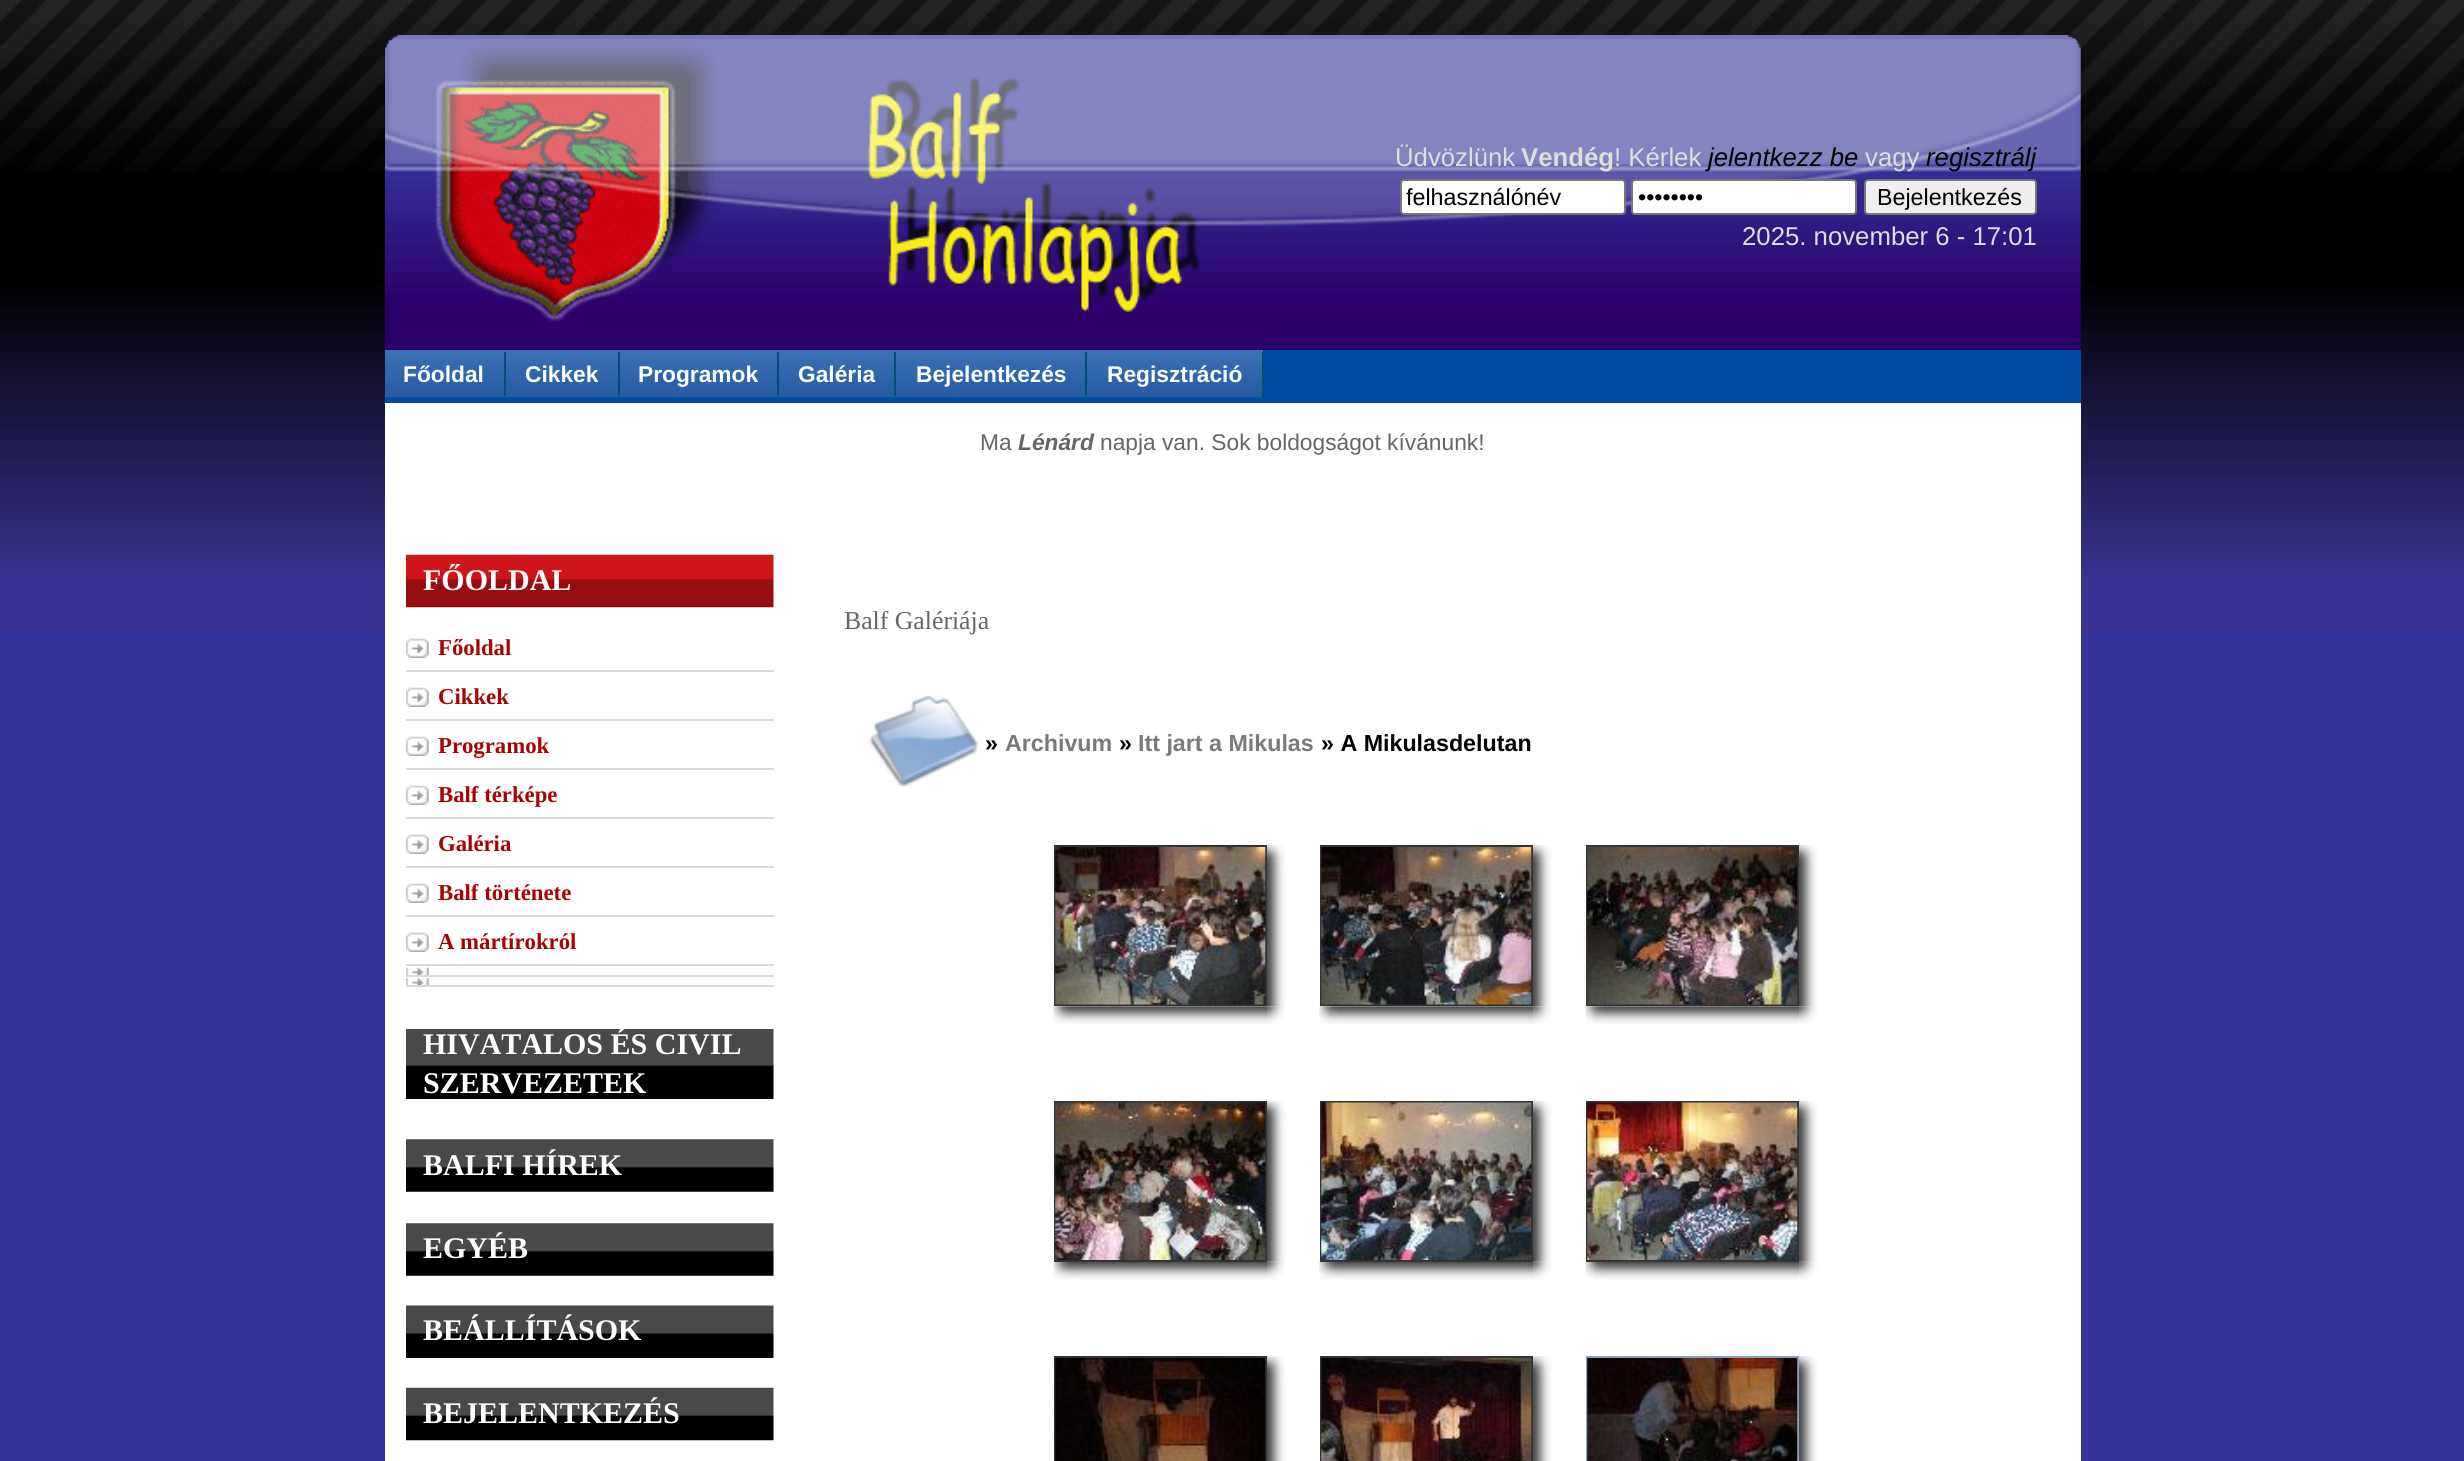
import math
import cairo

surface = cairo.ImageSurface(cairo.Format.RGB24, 2464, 1461)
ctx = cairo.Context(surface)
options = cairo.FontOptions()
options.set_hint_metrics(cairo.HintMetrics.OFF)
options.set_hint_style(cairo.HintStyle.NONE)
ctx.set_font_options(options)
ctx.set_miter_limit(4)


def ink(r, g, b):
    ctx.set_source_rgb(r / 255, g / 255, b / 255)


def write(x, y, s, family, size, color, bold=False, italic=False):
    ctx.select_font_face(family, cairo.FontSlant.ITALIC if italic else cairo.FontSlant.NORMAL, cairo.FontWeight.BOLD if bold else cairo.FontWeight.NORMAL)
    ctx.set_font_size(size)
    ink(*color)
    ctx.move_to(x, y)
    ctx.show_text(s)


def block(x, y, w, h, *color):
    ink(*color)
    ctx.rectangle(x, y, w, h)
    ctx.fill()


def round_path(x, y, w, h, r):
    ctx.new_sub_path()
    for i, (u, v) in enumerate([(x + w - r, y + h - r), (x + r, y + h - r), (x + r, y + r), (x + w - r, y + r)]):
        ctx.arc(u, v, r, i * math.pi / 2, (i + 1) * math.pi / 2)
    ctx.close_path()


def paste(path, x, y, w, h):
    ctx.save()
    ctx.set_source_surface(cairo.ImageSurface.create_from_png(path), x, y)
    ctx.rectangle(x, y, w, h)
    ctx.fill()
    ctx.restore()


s1 = dict(family="Liberation Sans", size=25.75, color=(221, 221, 221))
s2 = dict(family="Liberation Sans", size=25.75, color=(221, 221, 221), bold=True)
s3 = dict(family="Liberation Sans", size=25.75, color=(0, 0, 0), italic=True)
s4 = dict(family="Liberation Sans", size=23.25, color=(0, 0, 0))
s5 = dict(family="Liberation Sans", size=22.75, color=(255, 255, 255), bold=True)
s6 = dict(family="Liberation Sans", size=22.75, color=(102, 102, 102))
s7 = dict(family="Liberation Sans", size=22.75, color=(102, 102, 102), bold=True, italic=True)
s8 = dict(family="Liberation Serif", size=30, color=(255, 255, 255), bold=True)
s9 = dict(family="Liberation Serif", size=22.75, color=(167, 3, 3), bold=True)
s10 = dict(family="Liberation Serif", size=25.75, color=(102, 102, 102))
s11 = dict(family="Liberation Sans", size=23.25, color=(0, 0, 0), bold=True)
s12 = dict(family="Liberation Sans", size=23.25, color=(122, 122, 122), bold=True)

ink(51, 51, 153)
ctx.paint()
paste("pic1.png", 0, 0, 2464, 634)
paste("pic2.png", 385, 35, 1696, 315)
write(1395, 166, "Üdvözlünk", **s1)
write(1521, 166, "Vendég", **s2)
write(1614, 166, "! Kérlek", **s1)
write(1708, 166, "jelentkezz be", **s3)
write(1865, 166, "vagy", **s1)
write(1926, 166, "regisztrálj", **s3)
ink(255, 255, 255)
round_path(1401, 180, 224, 34, 3)
ctx.fill_preserve()
ink(118, 118, 118)
ctx.stroke()
write(1406, 205, "felhasználónév", **s4)
ink(255, 255, 255)
round_path(1632, 180, 224, 34, 3)
ctx.fill_preserve()
ink(118, 118, 118)
ctx.stroke()
write(1638, 205, "••••••••", **s4)
ink(239, 239, 239)
round_path(1865, 180, 171, 34, 3)
ctx.fill_preserve()
ink(118, 118, 118)
ctx.stroke()
write(1877, 205, "Bejelentkezés", **s4)
write(1742, 245, "2025. november 6 - 17:01", **s1)
block(385, 403, 1696, 1058, 255, 255, 255)
block(385, 350, 1696, 53, 0, 76, 163)
block(1263, 350, 1, 47, 0, 0, 0)
paste("pic3.png", 385, 350, 879, 48)
block(504, 352, 2, 44, 1, 79, 121)
write(403, 382, "Főoldal", **s5)
block(618, 352, 2, 44, 1, 79, 121)
write(525, 382, "Cikkek", **s5)
block(777, 352, 2, 44, 1, 79, 121)
write(638, 382, "Programok", **s5)
block(894, 352, 2, 44, 1, 79, 121)
write(798, 382, "Galéria", **s5)
block(1085, 352, 2, 44, 1, 79, 121)
write(916, 382, "Bejelentkezés", **s5)
block(1262, 352, 2, 44, 1, 79, 121)
write(1107, 382, "Regisztráció", **s5)
write(980, 450, "Ma", **s6)
write(1018, 450, "Lénárd", **s7)
write(1100, 450, "napja van. Sok boldogságot kívánunk!", **s6)
paste("pic4.png", 406, 554, 368, 54)
write(423, 590, "FŐOLDAL", **s8)
paste("pic5.png", 406, 638, 23, 20)
block(406, 670, 368, 2, 218, 218, 218)
write(438, 655, "Főoldal", **s9)
paste("pic5.png", 406, 687, 23, 20)
block(406, 719, 368, 2, 218, 218, 218)
write(438, 704, "Cikkek", **s9)
paste("pic5.png", 406, 736, 23, 20)
block(406, 768, 368, 2, 218, 218, 218)
write(438, 753, "Programok", **s9)
paste("pic5.png", 406, 785, 23, 20)
block(406, 817, 368, 2, 218, 218, 218)
write(438, 802, "Balf térképe", **s9)
paste("pic5.png", 406, 834, 23, 20)
block(406, 866, 368, 2, 218, 218, 218)
write(438, 851, "Galéria", **s9)
paste("pic5.png", 406, 883, 23, 20)
block(406, 915, 368, 2, 218, 218, 218)
write(438, 900, "Balf története", **s9)
paste("pic5.png", 406, 932, 23, 20)
block(406, 964, 368, 2, 218, 218, 218)
write(438, 949, "A mártírokról", **s9)
paste("pic6.png", 406, 967, 23, 8)
block(406, 975, 368, 2, 218, 218, 218)
paste("pic7.png", 406, 978, 23, 7)
block(406, 985, 368, 2, 218, 218, 218)
paste("pic8.png", 406, 1029, 368, 70)
write(423, 1054, "HIVATALOS ÉS CIVIL", **s8)
write(423, 1093, "SZERVEZETEK", **s8)
paste("pic9.png", 406, 1139, 368, 53)
write(423, 1175, "BALFI HÍREK", **s8)
paste("pic9.png", 406, 1223, 368, 53)
write(423, 1258, "EGYÉB", **s8)
paste("pic10.png", 406, 1305, 368, 53)
write(423, 1340, "BEÁLLÍTÁSOK", **s8)
paste("pic11.png", 406, 1387, 368, 54)
write(423, 1423, "BEJELENTKEZÉS", **s8)
write(844, 629, "Balf Galériája", **s10)
paste("pic12.png", 868, 695, 111, 93)
write(985, 751, "»", **s11)
write(1005, 751, "Archivum", **s12)
write(1119, 751, "»", **s11)
write(1138, 751, "Itt jart a Mikulas", **s12)
write(1321, 751, "» A Mikulasdelutan", **s11)
ctx.rectangle(1055, 846, 211, 159)
ink(51, 51, 51)
ctx.stroke()
paste("pic13.png", 1055, 847, 211, 158)
paste("pic14.png", 1267, 845, 19, 162)
paste("pic15.png", 1053, 1006, 214, 19)
paste("pic16.png", 1267, 1006, 18, 18)
ctx.rectangle(1321, 846, 211, 159)
ctx.stroke()
paste("pic17.png", 1321, 847, 211, 158)
paste("pic18.png", 1533, 845, 19, 162)
paste("pic19.png", 1319, 1006, 214, 19)
paste("pic20.png", 1533, 1006, 18, 18)
ctx.rectangle(1587, 846, 211, 159)
ctx.stroke()
paste("pic21.png", 1587, 847, 211, 158)
paste("pic18.png", 1799, 845, 19, 162)
paste("pic22.png", 1585, 1006, 214, 19)
paste("pic20.png", 1799, 1006, 18, 18)
paste("pic25.png", 1053, 1261, 214, 19)
ctx.rectangle(1055, 1102, 211, 159)
ctx.stroke()
paste("pic23.png", 1055, 1102, 211, 158)
paste("pic24.png", 1267, 1100, 19, 162)
paste("pic26.png", 1267, 1261, 18, 19)
paste("pic29.png", 1319, 1261, 214, 19)
ctx.rectangle(1321, 1102, 211, 159)
ctx.stroke()
paste("pic27.png", 1321, 1102, 211, 158)
paste("pic28.png", 1533, 1100, 19, 162)
paste("pic30.png", 1533, 1261, 18, 19)
paste("pic32.png", 1585, 1261, 214, 19)
ctx.rectangle(1587, 1102, 211, 159)
ctx.stroke()
paste("pic31.png", 1587, 1102, 211, 158)
paste("pic28.png", 1799, 1100, 19, 162)
paste("pic30.png", 1799, 1261, 18, 19)
ctx.rectangle(1055, 1357, 211, 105)
ctx.stroke()
paste("pic33.png", 1055, 1358, 211, 103)
paste("pic34.png", 1267, 1356, 19, 105)
ctx.rectangle(1321, 1357, 211, 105)
ctx.stroke()
paste("pic35.png", 1321, 1358, 211, 103)
paste("pic36.png", 1533, 1356, 19, 105)
ctx.rectangle(1587, 1357, 211, 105)
ink(140, 160, 191)
ctx.stroke()
paste("pic37.png", 1587, 1358, 211, 103)
paste("pic36.png", 1799, 1356, 19, 105)
surface.write_to_png("screenshot.png")
